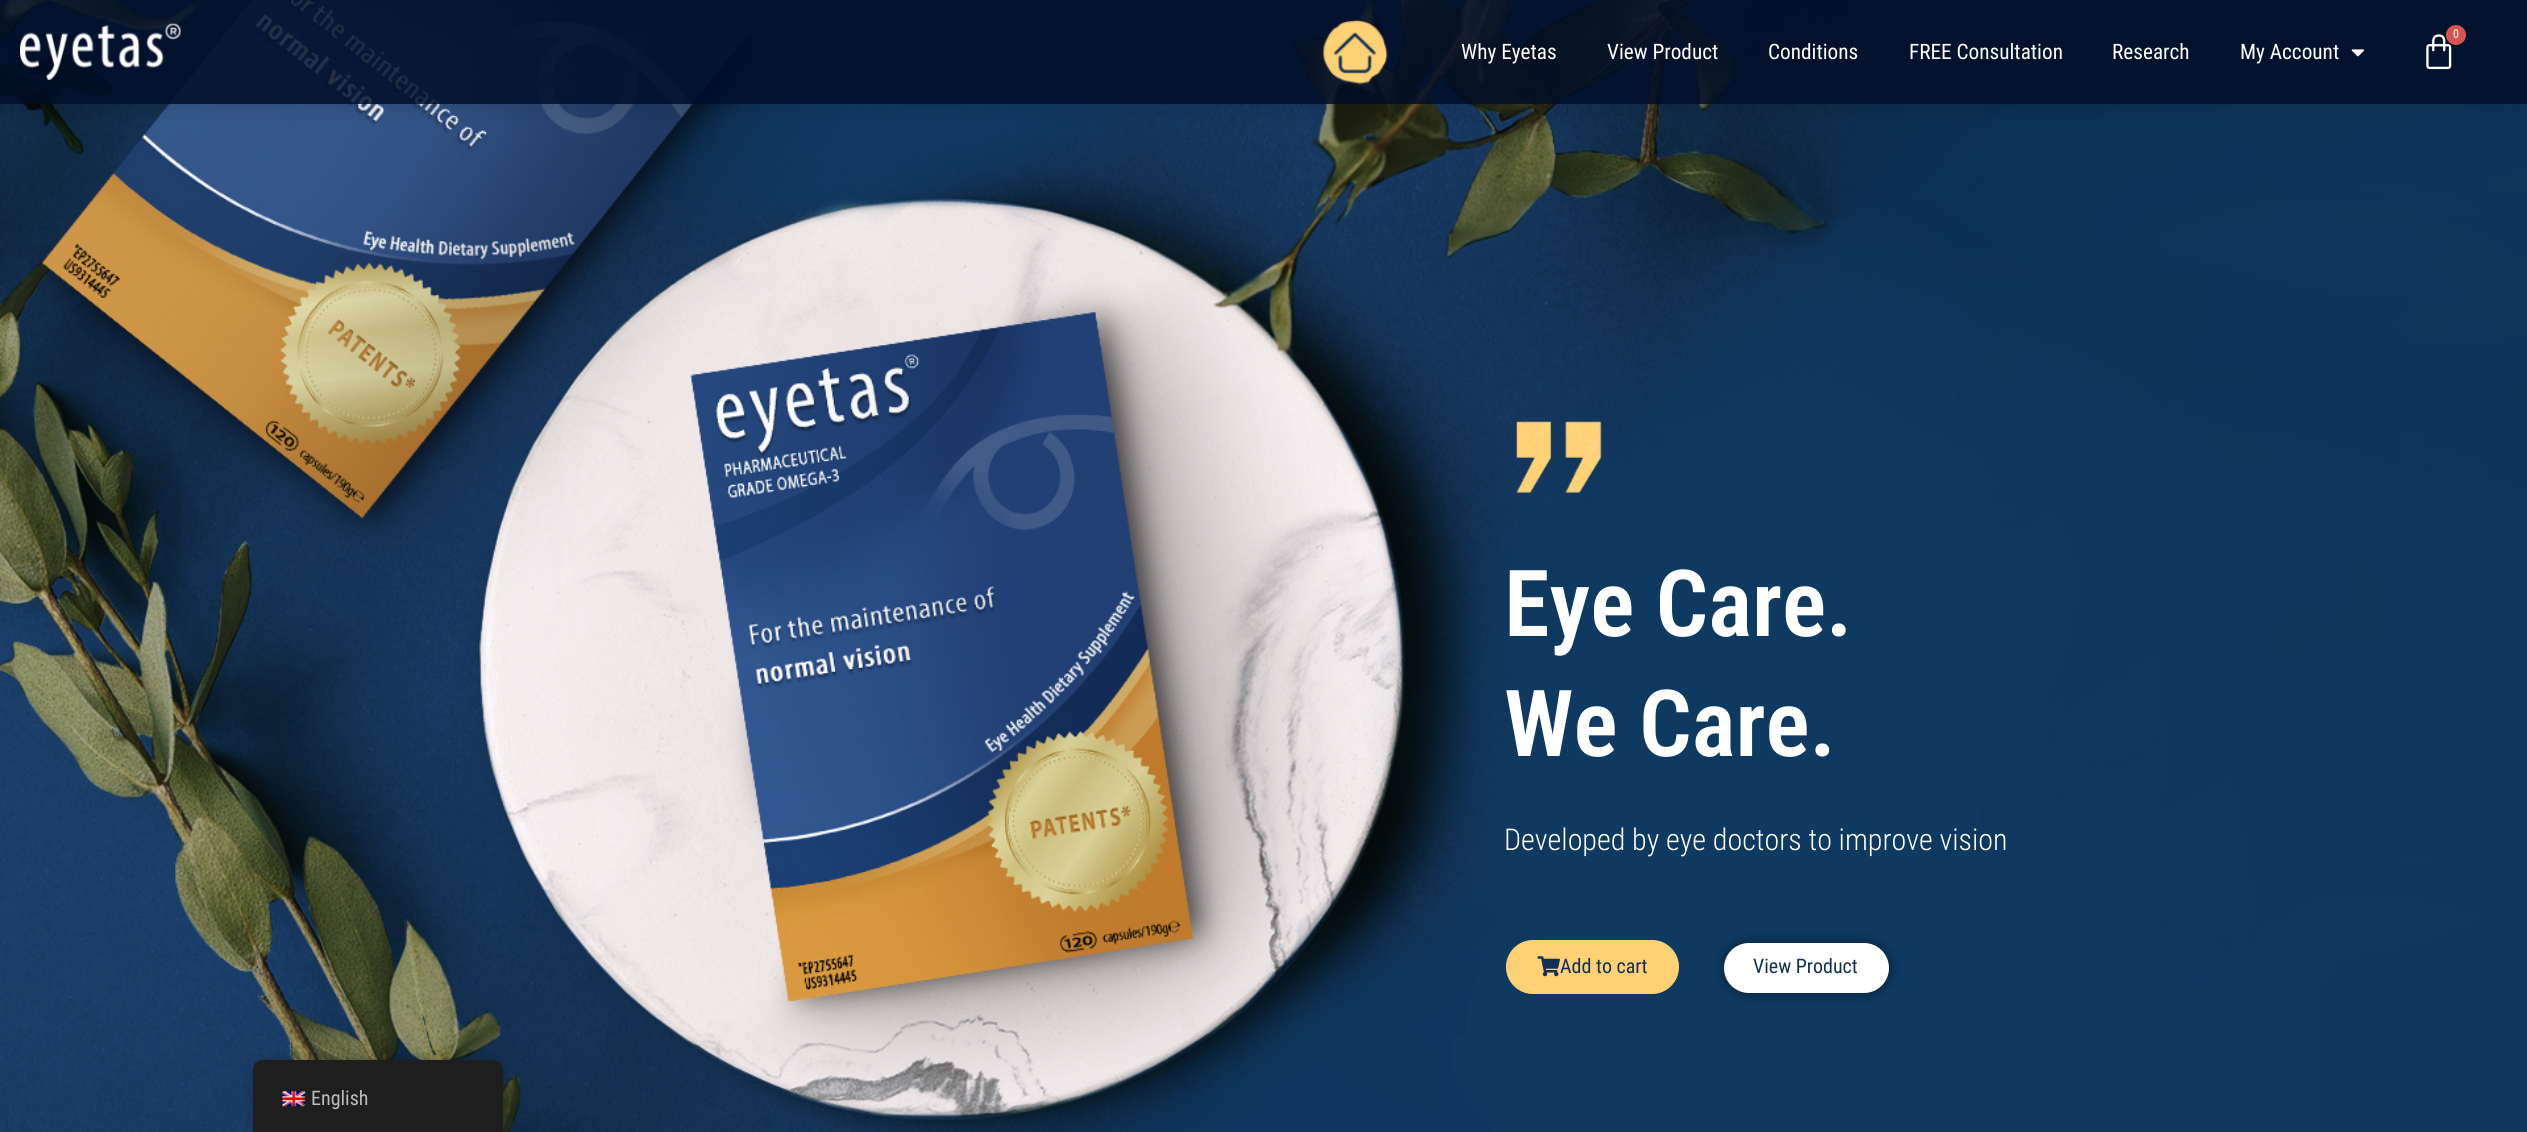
import math
import cairo

surface = cairo.ImageSurface(cairo.Format.RGB24, 2527, 1132)
ctx = cairo.Context(surface)
options = cairo.FontOptions()
options.set_hint_metrics(cairo.HintMetrics.OFF)
options.set_hint_style(cairo.HintStyle.NONE)
ctx.set_font_options(options)
ctx.set_miter_limit(4)


def ink(r, g, b):
    ctx.set_source_rgb(r / 255, g / 255, b / 255)


def write(x, y, s, family, size, color, bold=False, italic=False):
    ctx.select_font_face(family, cairo.FontSlant.ITALIC if italic else cairo.FontSlant.NORMAL, cairo.FontWeight.BOLD if bold else cairo.FontWeight.NORMAL)
    ctx.set_font_size(size)
    ink(*color)
    ctx.move_to(x, y)
    ctx.show_text(s)


def round_path(x, y, w, h, r):
    ctx.new_sub_path()
    for i, (u, v) in enumerate([(x + w - r, y + h - r), (x + r, y + h - r), (x + r, y + r), (x + w - r, y + r)]):
        ctx.arc(u, v, r, i * math.pi / 2, (i + 1) * math.pi / 2)
    ctx.close_path()


def blur_box(x, y, w, h, r, blur, alpha):
    ctx.push_group_with_content(cairo.Content.ALPHA)
    ctx.set_operator(cairo.Operator.SOURCE)
    for i in range(15, -16, -2):
        e = blur * i / 6
        if min(w, h) + 2 * e > 0:
            ctx.set_source_rgba(0, 0, 0, alpha * math.erfc((i - 1) / 8.5) / 2)
            round_path(x - e, y - e, w + 2 * e, h + 2 * e, max(0, min(r + e + blur * .6, min(w, h) / 2 + e)))
            ctx.fill()
    ctx.mask(ctx.pop_group())


def paste(path, x, y, w, h):
    ctx.save()
    ctx.set_source_surface(cairo.ImageSurface.create_from_png(path), x, y)
    ctx.rectangle(x, y, w, h)
    ctx.fill()
    ctx.restore()


s1 = dict(family="Roboto Condensed", size=12, color=(255, 255, 255))
s2 = dict(family="Roboto Condensed", size=21.25, color=(255, 255, 255))
s3 = dict(family="Roboto Condensed SemiBold", size=92.5, color=(255, 255, 255))
s4 = dict(family="Roboto Condensed Light", size=30, color=(255, 255, 255))
s5 = dict(family="Roboto Condensed", size=20, color=(18, 48, 85))
s6 = dict(family="Roboto Condensed", size=20, color=(189, 189, 189))

ink(255, 255, 255)
ctx.paint()
paste("pic5.png", 0, 0, 2527, 1132)
ctx.save()
ctx.rectangle(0, 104, 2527, 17)
ctx.clip()
ink(0, 0, 0)
blur_box(0, 0, 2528, 104, 0, 15, 0.15)
ctx.restore()
ctx.set_source_rgba(0.004, 0.047, 0.149, 0.84)
ctx.rectangle(0, 0, 2527, 104)
ctx.fill()
paste("pic1.png", 20, 23, 161, 57)
paste("pic2.png", 2426, 34, 26, 36)
ink(217, 83, 79)
ctx.arc(2456, 35, 10, 0, 2 * math.pi)
ctx.fill()
write(2453, 38, "0", **s1)
paste("pic3.png", 1322, 19, 66, 66)
write(1461, 59, "Why Eyetas", **s2)
write(1607, 59, "View Product", **s2)
write(1768, 59, "Conditions", **s2)
write(1909, 59, "FREE Consultation", **s2)
write(2112, 59, "Research", **s2)
write(2240, 59, "My Account", **s2)
paste("pic4.png", 2351, 49, 13, 8)
paste("pic6.png", 1516, 421, 86, 72)
write(1504, 636, "Eye Care.", **s3)
write(1504, 756, "We Care.", **s3)
write(1504, 850, "Developed by eye doctors to improve vision", **s4)
ink(254, 209, 117)
round_path(1506.5, 940.5, 172, 53, 26.5)
ctx.fill_preserve()
ctx.set_line_width(1)
ctx.stroke()
paste("pic7.png", 1537, 956, 23, 21)
write(1560, 973, "Add to cart", **s5)
ink(0, 0, 0)
blur_box(1724, 943, 165, 50, 25, 6, 0.5)
ink(255, 255, 255)
round_path(1724, 943, 165, 50, 25)
ctx.fill()
write(1753, 973, "View Product", **s5)
ink(0, 0, 0)
blur_box(253, 1060, 250, 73, 10, 5, 0.25)
ink(30, 30, 30)
ctx.new_path()
ctx.move_to(263, 1060)
ctx.line_to(493, 1060)
ctx.curve_to(498.5, 1060, 503, 1064.5, 503, 1070)
ctx.line_to(503, 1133)
ctx.line_to(253, 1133)
ctx.line_to(253, 1070)
ctx.curve_to(253, 1064.5, 257.5, 1060, 263, 1060)
ctx.close_path()
ctx.fill()
paste("pic8.png", 282, 1091, 24, 16)
write(311, 1105, "English", **s6)
surface.write_to_png("screenshot.png")
